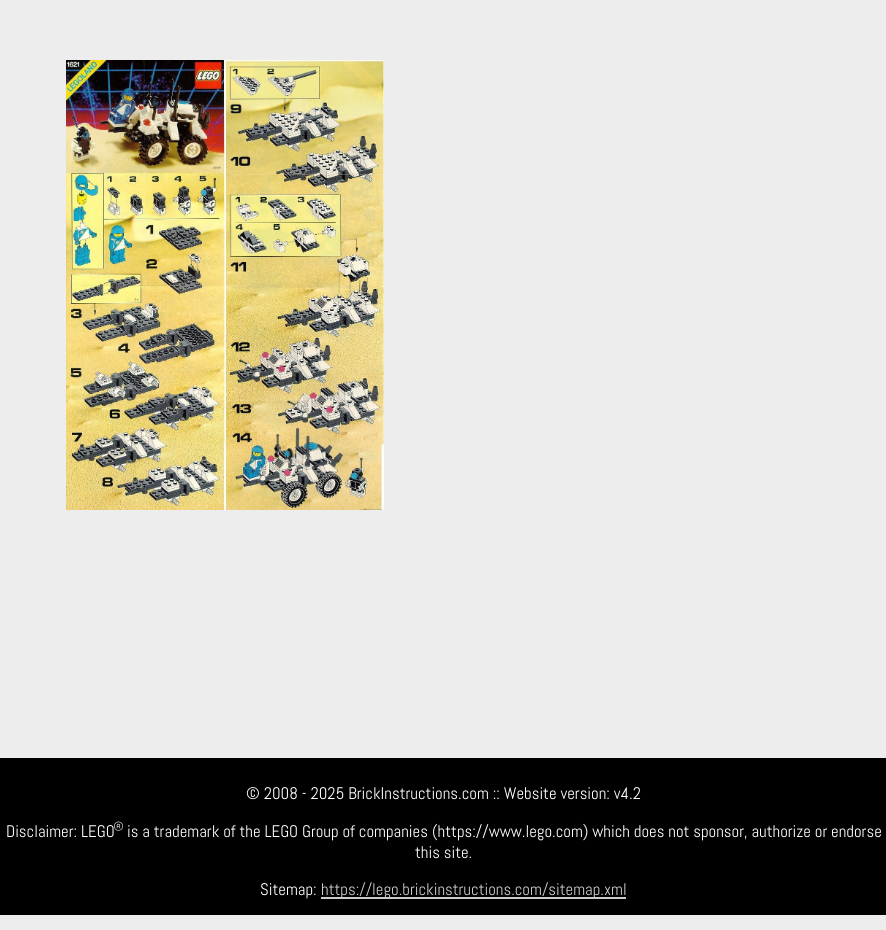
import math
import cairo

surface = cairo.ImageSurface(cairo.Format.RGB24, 886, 930)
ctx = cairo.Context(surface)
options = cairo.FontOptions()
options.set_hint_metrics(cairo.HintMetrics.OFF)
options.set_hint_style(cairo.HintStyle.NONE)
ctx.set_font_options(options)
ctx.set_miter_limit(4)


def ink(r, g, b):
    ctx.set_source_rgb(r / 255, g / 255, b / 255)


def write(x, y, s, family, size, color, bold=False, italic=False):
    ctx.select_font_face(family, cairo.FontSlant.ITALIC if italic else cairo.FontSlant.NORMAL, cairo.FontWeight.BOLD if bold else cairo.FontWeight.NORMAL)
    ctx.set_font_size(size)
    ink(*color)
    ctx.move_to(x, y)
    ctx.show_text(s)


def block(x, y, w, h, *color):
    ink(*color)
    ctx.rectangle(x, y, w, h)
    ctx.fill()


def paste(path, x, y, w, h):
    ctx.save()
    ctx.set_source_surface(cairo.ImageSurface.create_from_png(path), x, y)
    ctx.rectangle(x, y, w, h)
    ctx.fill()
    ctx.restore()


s1 = dict(family="Abel", size=16.8, color=(255, 255, 255))
s2 = dict(family="Abel", size=16.8, color=(204, 204, 204))

ink(237, 237, 237)
ctx.paint()
paste("pic1.png", 66, 60, 318, 450)
block(0, 758, 886, 157, 0, 0, 0)
write(246, 799, "© 2008 - 2025 BrickInstructions.com :: Website version: v4.2", **s1)
write(6, 837, "Disclaimer: LEGO", **s1)
paste("pic2.png", 114, 821, 9, 10)
write(127, 837, "is a trademark of the LEGO Group of companies", **s1)
write(432, 837, "(https://www.lego.com) which does not sponsor, authorize or endorse", **s1)
write(415, 858, "this site.", **s1)
write(260, 895, "Sitemap:", **s1)
block(321, 897, 305, 2, 204, 204, 204)
write(321, 895, "https://lego.brickinstructions.com/sitemap.xml", **s2)
surface.write_to_png("screenshot.png")
